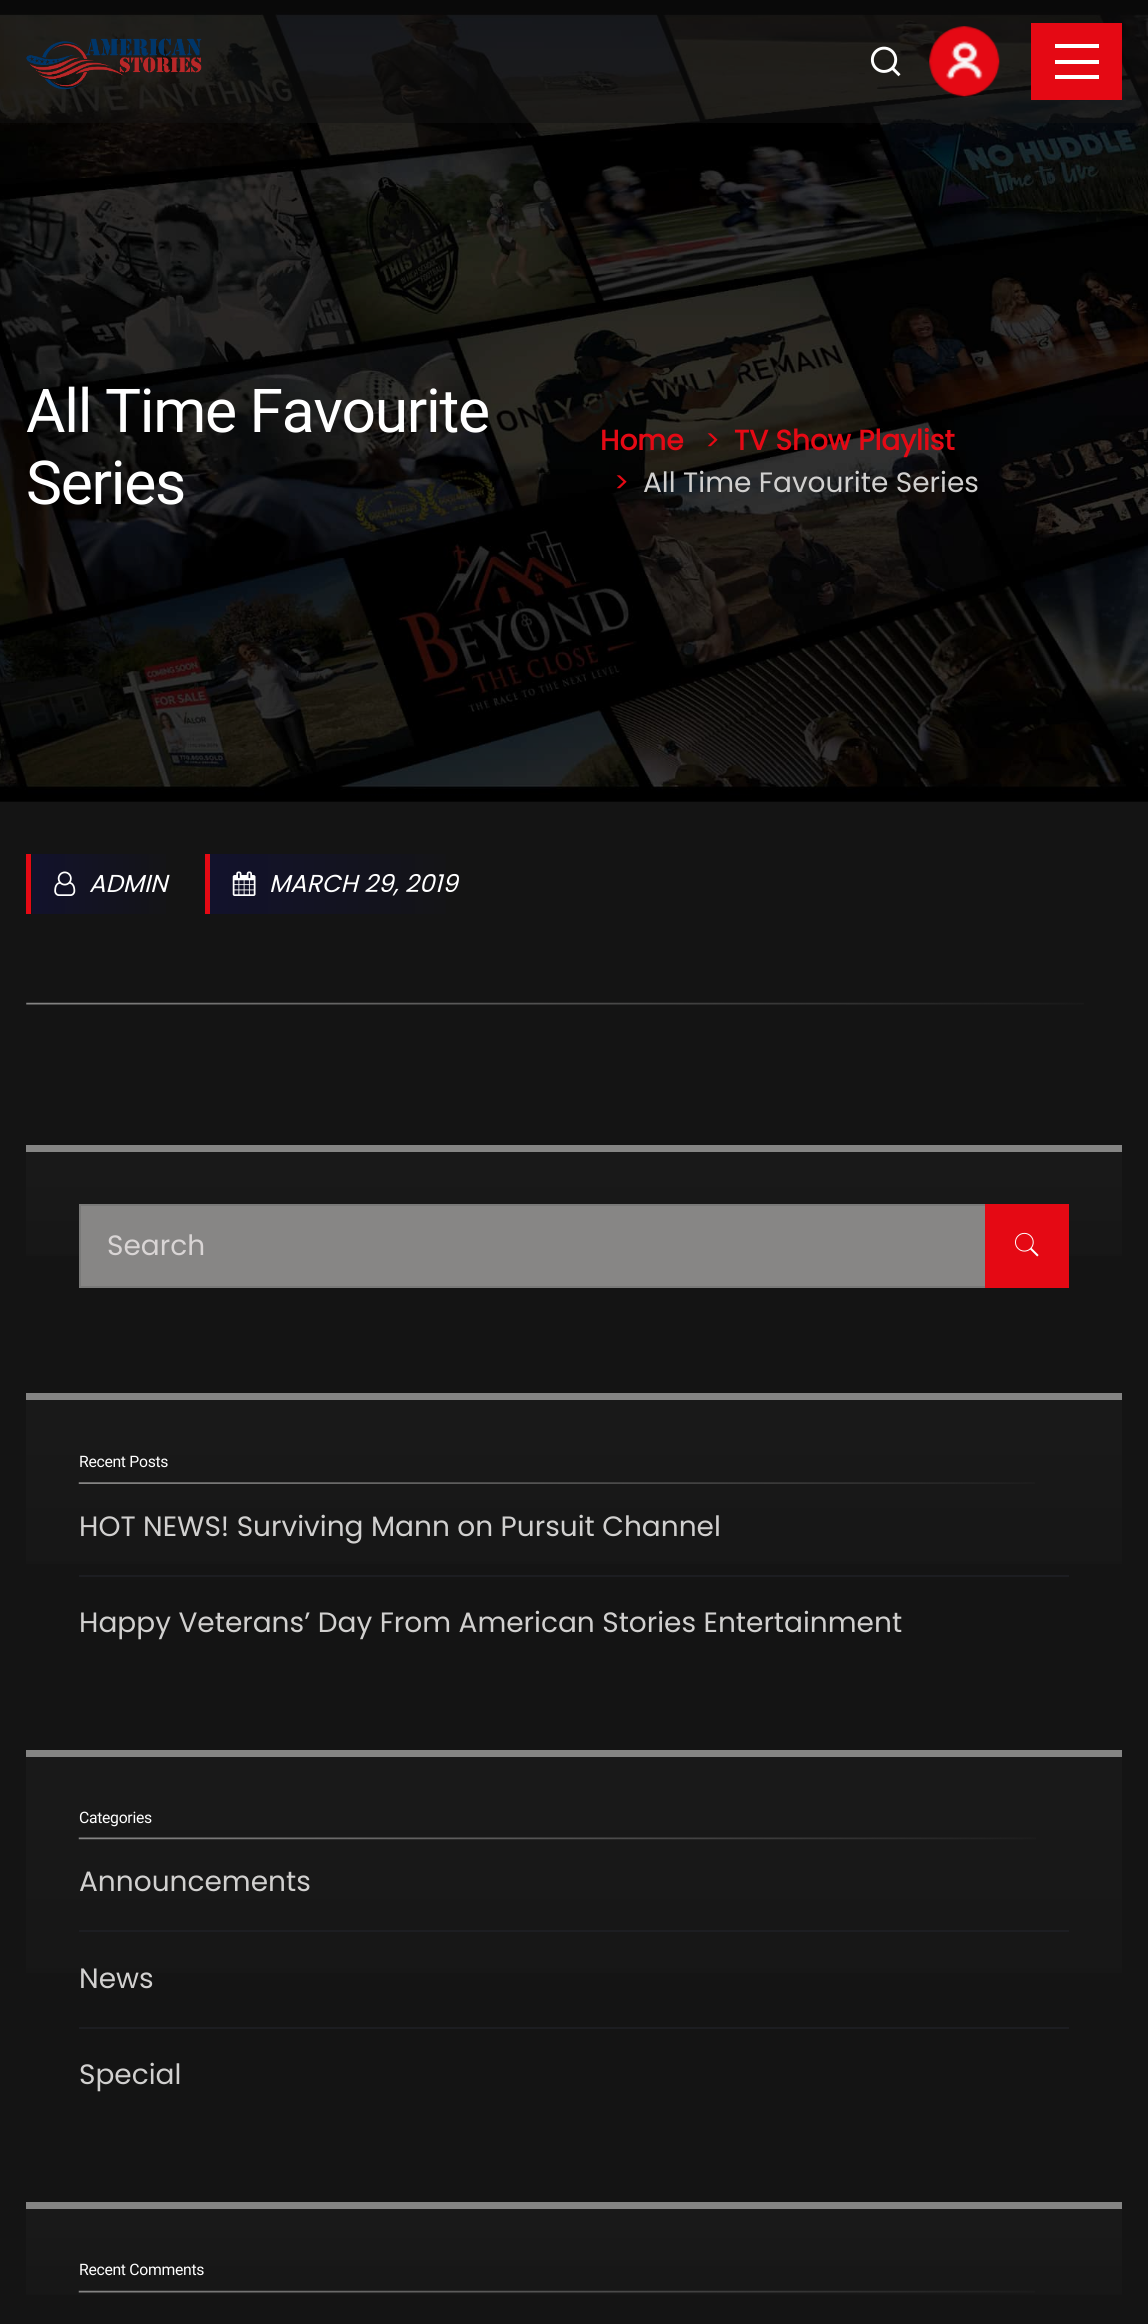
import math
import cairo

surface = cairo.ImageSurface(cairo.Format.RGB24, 1148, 2324)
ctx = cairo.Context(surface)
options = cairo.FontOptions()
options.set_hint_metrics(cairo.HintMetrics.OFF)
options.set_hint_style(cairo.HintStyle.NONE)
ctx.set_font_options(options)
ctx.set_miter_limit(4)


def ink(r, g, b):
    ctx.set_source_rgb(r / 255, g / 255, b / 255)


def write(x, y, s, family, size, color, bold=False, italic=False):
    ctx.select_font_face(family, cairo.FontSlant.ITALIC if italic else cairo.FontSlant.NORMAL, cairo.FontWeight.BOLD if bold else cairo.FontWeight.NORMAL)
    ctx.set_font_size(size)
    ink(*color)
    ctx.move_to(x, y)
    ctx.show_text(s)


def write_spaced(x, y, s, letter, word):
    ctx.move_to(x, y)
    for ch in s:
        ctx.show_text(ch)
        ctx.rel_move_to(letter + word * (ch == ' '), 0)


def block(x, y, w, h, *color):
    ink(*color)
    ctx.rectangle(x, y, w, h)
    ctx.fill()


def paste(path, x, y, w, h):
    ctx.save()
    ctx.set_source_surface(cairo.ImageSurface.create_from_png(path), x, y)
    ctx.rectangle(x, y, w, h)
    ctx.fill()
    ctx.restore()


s1 = dict(family="Poppins", size=28, color=(229, 9, 20), bold=True)
s2 = dict(family="Poppins", size=28, color=(229, 9, 20))
s3 = dict(family="Poppins", size=28, color=(209, 208, 207))
s4 = dict(family="Poppins", size=24.5, color=(255, 255, 255), italic=True)
s5 = dict(family="Poppins", size=28, color=(217, 213, 213))

ink(20, 20, 20)
ctx.paint()
block(0, 801, 1148, 1, 13, 13, 13)
paste("pic4.png", 0, 0, 1148, 802)
ctx.set_source_rgba(0.078, 0.078, 0.078, 0.5)
ctx.rectangle(0, 0, 1148, 123)
ctx.fill()
paste("pic1.png", 26, 38, 176, 52)
paste("pic2.png", 870, 46, 31, 31)
paste("pic3.png", 929, 26, 71, 71)
block(1031, 23, 91, 77, 229, 9, 20)
block(1055, 44, 44, 4, 255, 255, 255)
block(1055, 60, 44, 4, 255, 255, 255)
block(1055, 75, 44, 4, 255, 255, 255)
ctx.select_font_face("Roboto")
ctx.set_font_size(60.5)
write_spaced(26, 432, "All Time Favourite", -1.25, 0)
write_spaced(26, 504, "Series", -1.25, 0)
write(600, 450, "Home", **s1)
write(705, 450, ">", **s2)
write(734, 450, "TV Show Playlist", **s1)
write(614, 492, ">", **s2)
write(643, 492, "All Time Favourite Series", **s3)
paste("pic5.png", 26, 1002, 1058, 3)
gradient = cairo.LinearGradient(182, 884, 32, 884)
gradient.add_color_stop_rgba(0, 0.078, 0.078, 0.078, 1)
gradient.add_color_stop_rgba(1, 0.071, 0.071, 0.173, 1)
ctx.set_source(gradient)
ctx.rectangle(32, 854, 134, 60)
ctx.fill()
block(26, 854, 5, 60, 229, 9, 20)
paste("pic6.png", 54, 871, 22, 25)
write(89, 892, "ADMIN", **s4)
gradient = cairo.LinearGradient(473, 884, 210, 884)
gradient.add_color_stop_rgba(0, 0.078, 0.078, 0.078, 1)
gradient.add_color_stop_rgba(1, 0.071, 0.071, 0.173, 1)
ctx.set_source(gradient)
ctx.rectangle(210, 854, 236, 60)
ctx.fill()
block(205, 854, 5, 60, 229, 9, 20)
paste("pic7.png", 232, 871, 24, 25)
write(269, 892, "MARCH 29, 2019", **s4)
gradient = cairo.LinearGradient(574, 1152, 574, 1341)
gradient.add_color_stop_rgba(0, 0.098, 0.098, 0.098, 1)
gradient.add_color_stop_rgba(0.1, 0.098, 0.098, 0.098, 1)
gradient.add_color_stop_rgba(1, 0.078, 0.078, 0.078, 1)
ctx.set_source(gradient)
ctx.rectangle(26, 1152, 1096, 104)
ctx.fill()
block(26, 1145, 1096, 7, 133, 133, 132)
block(81, 1206, 904, 80, 135, 134, 133)
ctx.rectangle(80, 1205, 988, 82)
ink(121, 121, 120)
ctx.stroke()
write(107, 1255, "Search", **s5)
block(985, 1204, 84, 84, 229, 9, 20)
paste("pic8.png", 1015, 1232, 24, 25)
gradient = cairo.LinearGradient(574, 1400, 574, 1698)
gradient.add_color_stop_rgba(0, 0.098, 0.098, 0.098, 1)
gradient.add_color_stop_rgba(0.1, 0.098, 0.098, 0.098, 1)
gradient.add_color_stop_rgba(1, 0.078, 0.078, 0.078, 1)
ctx.set_source(gradient)
ctx.rectangle(26, 1400, 1096, 164)
ctx.fill()
block(26, 1393, 1096, 7, 133, 133, 132)
paste("pic9.png", 78, 1482, 957, 2)
ctx.select_font_face("Roboto")
ctx.set_font_size(15.75)
ink(255, 255, 255)
write_spaced(79, 1467, "Recent Posts", -0.3, 0)
block(79, 1575, 990, 2, 28, 29, 33)
write(79, 1536, "HOT NEWS! Surviving Mann on Pursuit Channel", **s3)
write(79, 1632, "Happy Veterans’ Day From American Stories Entertainment", **s3)
gradient = cairo.LinearGradient(574, 1757, 574, 2149)
gradient.add_color_stop_rgba(0, 0.098, 0.098, 0.098, 1)
gradient.add_color_stop_rgba(0.1, 0.098, 0.098, 0.098, 1)
gradient.add_color_stop_rgba(1, 0.078, 0.078, 0.078, 1)
ctx.set_source(gradient)
ctx.rectangle(26, 1757, 1096, 216)
ctx.fill()
block(26, 1750, 1096, 7, 133, 133, 132)
paste("pic10.png", 78, 1837, 958, 3)
ctx.select_font_face("Roboto")
ctx.set_font_size(15.75)
ink(255, 255, 255)
write_spaced(79, 1823, "Categories", -0.3, 0)
block(79, 1930, 990, 2, 29, 30, 34)
write(79, 1891, "Announcements", **s3)
block(79, 2027, 990, 2, 28, 29, 33)
write(79, 1988, "News", **s3)
write(79, 2084, "Special", **s3)
gradient = cairo.LinearGradient(574, 2209, 574, 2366)
gradient.add_color_stop_rgba(0, 0.098, 0.098, 0.098, 1)
gradient.add_color_stop_rgba(0.1, 0.098, 0.098, 0.098, 1)
gradient.add_color_stop_rgba(1, 0.078, 0.078, 0.078, 1)
ctx.set_source(gradient)
ctx.rectangle(26, 2209, 1096, 86)
ctx.fill()
block(26, 2202, 1096, 7, 133, 133, 132)
paste("pic11.png", 78, 2290, 957, 3)
ctx.select_font_face("Roboto")
ctx.set_font_size(15.75)
ink(255, 255, 255)
write_spaced(79, 2275, "Recent Comments", -0.3, 0)
surface.write_to_png("screenshot.png")
